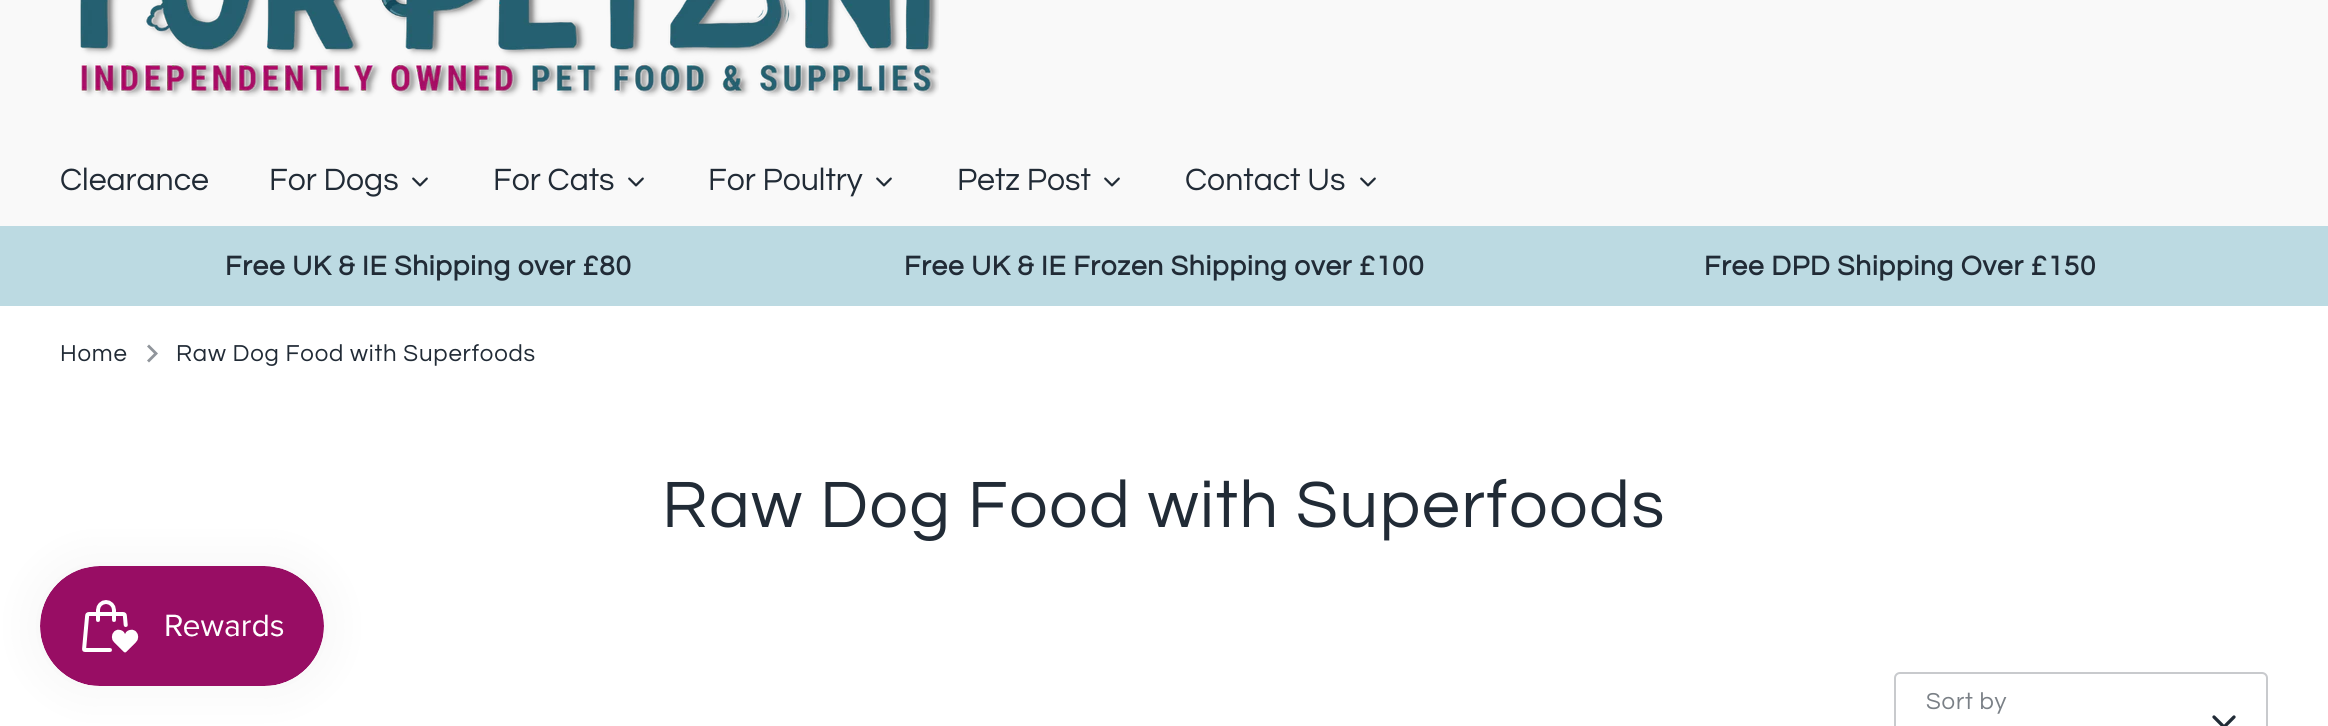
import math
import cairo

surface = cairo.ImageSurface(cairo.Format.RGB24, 2328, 726)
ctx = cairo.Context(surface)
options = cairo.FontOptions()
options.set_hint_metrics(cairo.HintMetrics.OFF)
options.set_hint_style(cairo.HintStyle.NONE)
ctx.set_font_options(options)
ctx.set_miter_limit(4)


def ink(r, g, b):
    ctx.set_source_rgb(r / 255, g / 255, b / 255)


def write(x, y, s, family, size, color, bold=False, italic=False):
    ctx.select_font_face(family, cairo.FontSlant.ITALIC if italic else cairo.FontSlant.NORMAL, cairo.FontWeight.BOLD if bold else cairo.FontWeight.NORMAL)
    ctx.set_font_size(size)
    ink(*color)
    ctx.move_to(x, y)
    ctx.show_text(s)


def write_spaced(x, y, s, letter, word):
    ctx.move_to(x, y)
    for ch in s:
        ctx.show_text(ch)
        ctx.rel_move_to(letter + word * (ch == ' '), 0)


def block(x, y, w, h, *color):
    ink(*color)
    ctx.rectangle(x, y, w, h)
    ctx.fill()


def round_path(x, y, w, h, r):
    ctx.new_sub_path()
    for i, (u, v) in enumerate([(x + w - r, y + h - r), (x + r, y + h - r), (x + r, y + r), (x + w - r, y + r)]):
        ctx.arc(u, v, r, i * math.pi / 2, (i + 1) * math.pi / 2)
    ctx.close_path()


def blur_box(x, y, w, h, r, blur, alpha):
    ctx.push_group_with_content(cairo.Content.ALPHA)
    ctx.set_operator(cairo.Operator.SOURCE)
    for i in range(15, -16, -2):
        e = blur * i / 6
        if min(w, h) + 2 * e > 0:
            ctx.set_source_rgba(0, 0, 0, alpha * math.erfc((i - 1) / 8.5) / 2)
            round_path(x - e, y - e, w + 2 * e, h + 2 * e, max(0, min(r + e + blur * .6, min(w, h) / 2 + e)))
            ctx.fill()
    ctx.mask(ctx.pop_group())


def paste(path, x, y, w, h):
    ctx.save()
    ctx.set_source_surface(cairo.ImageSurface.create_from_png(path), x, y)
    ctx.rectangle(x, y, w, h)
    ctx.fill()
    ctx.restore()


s1 = dict(family="Questrial", size=32, color=(33, 43, 54))

ink(255, 255, 255)
ctx.paint()
block(0, 0, 2328, 226, 249, 249, 249)
paste("pic1.png", 80, 0, 859, 97)
write(60, 190, "Clearance", **s1)
write(269, 190, "For Dogs", **s1)
paste("pic2.png", 412, 177, 16, 10)
write(493, 190, "For Cats", **s1)
paste("pic2.png", 628, 177, 16, 10)
write(708, 190, "For Poultry", **s1)
paste("pic2.png", 876, 177, 16, 10)
write(957, 190, "Petz Post", **s1)
paste("pic2.png", 1104, 177, 16, 10)
write(1185, 190, "Contact Us", **s1)
paste("pic2.png", 1360, 177, 16, 10)
block(0, 226, 2328, 80, 188, 218, 226)
ctx.select_font_face("Questrial", cairo.FontSlant.NORMAL, cairo.FontWeight.BOLD)
ctx.set_font_size(28)
ink(33, 43, 54)
write_spaced(225, 275, "Free UK & IE Shipping over £80", 0.8, 0)
write_spaced(904, 275, "Free UK & IE Frozen Shipping over £100", 0.8, 0)
write_spaced(1704, 275, "Free DPD Shipping Over £150", 0.8, 0)
ctx.select_font_face("Questrial")
ctx.set_font_size(24)
write_spaced(60, 361, "Home", 0.8, 0)
ink(144, 149, 155)
ctx.new_path()
ctx.move_to(147, 360.5)
ctx.line_to(154, 353.5)
ctx.line_to(147, 346.5)
ctx.line_to(149, 344.5)
ctx.line_to(158, 353.5)
ctx.line_to(149, 362.5)
ctx.close_path()
ctx.fill()
ink(33, 43, 54)
write_spaced(176, 361, "Raw Dog Food with Superfoods", 0.8, 0)
ink(0, 0, 0)
blur_box(40, 566, 284, 120, 60, 25, 0.05)
paste("pic3.png", 40, 566, 284, 120)
ctx.set_font_size(68)
ink(33, 43, 54)
write_spaced(662, 527, "Raw Dog Food with Superfoods", 1.7, 0)
round_path(1895, 673, 372, 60, 5)
ink(200, 202, 205)
ctx.stroke()
ctx.set_font_size(24)
ink(122, 128, 134)
write_spaced(1926, 709, "Sort by", 0.8, 0)
ctx.new_path()
ctx.move_to(2214, 717)
ctx.line_to(2224, 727)
ctx.line_to(2234, 717)
ink(33, 43, 54)
ctx.set_line_width(3.3)
ctx.set_line_cap(cairo.LineCap.ROUND)
ctx.set_line_join(cairo.LineJoin.ROUND)
ctx.stroke()
surface.write_to_png("screenshot.png")
